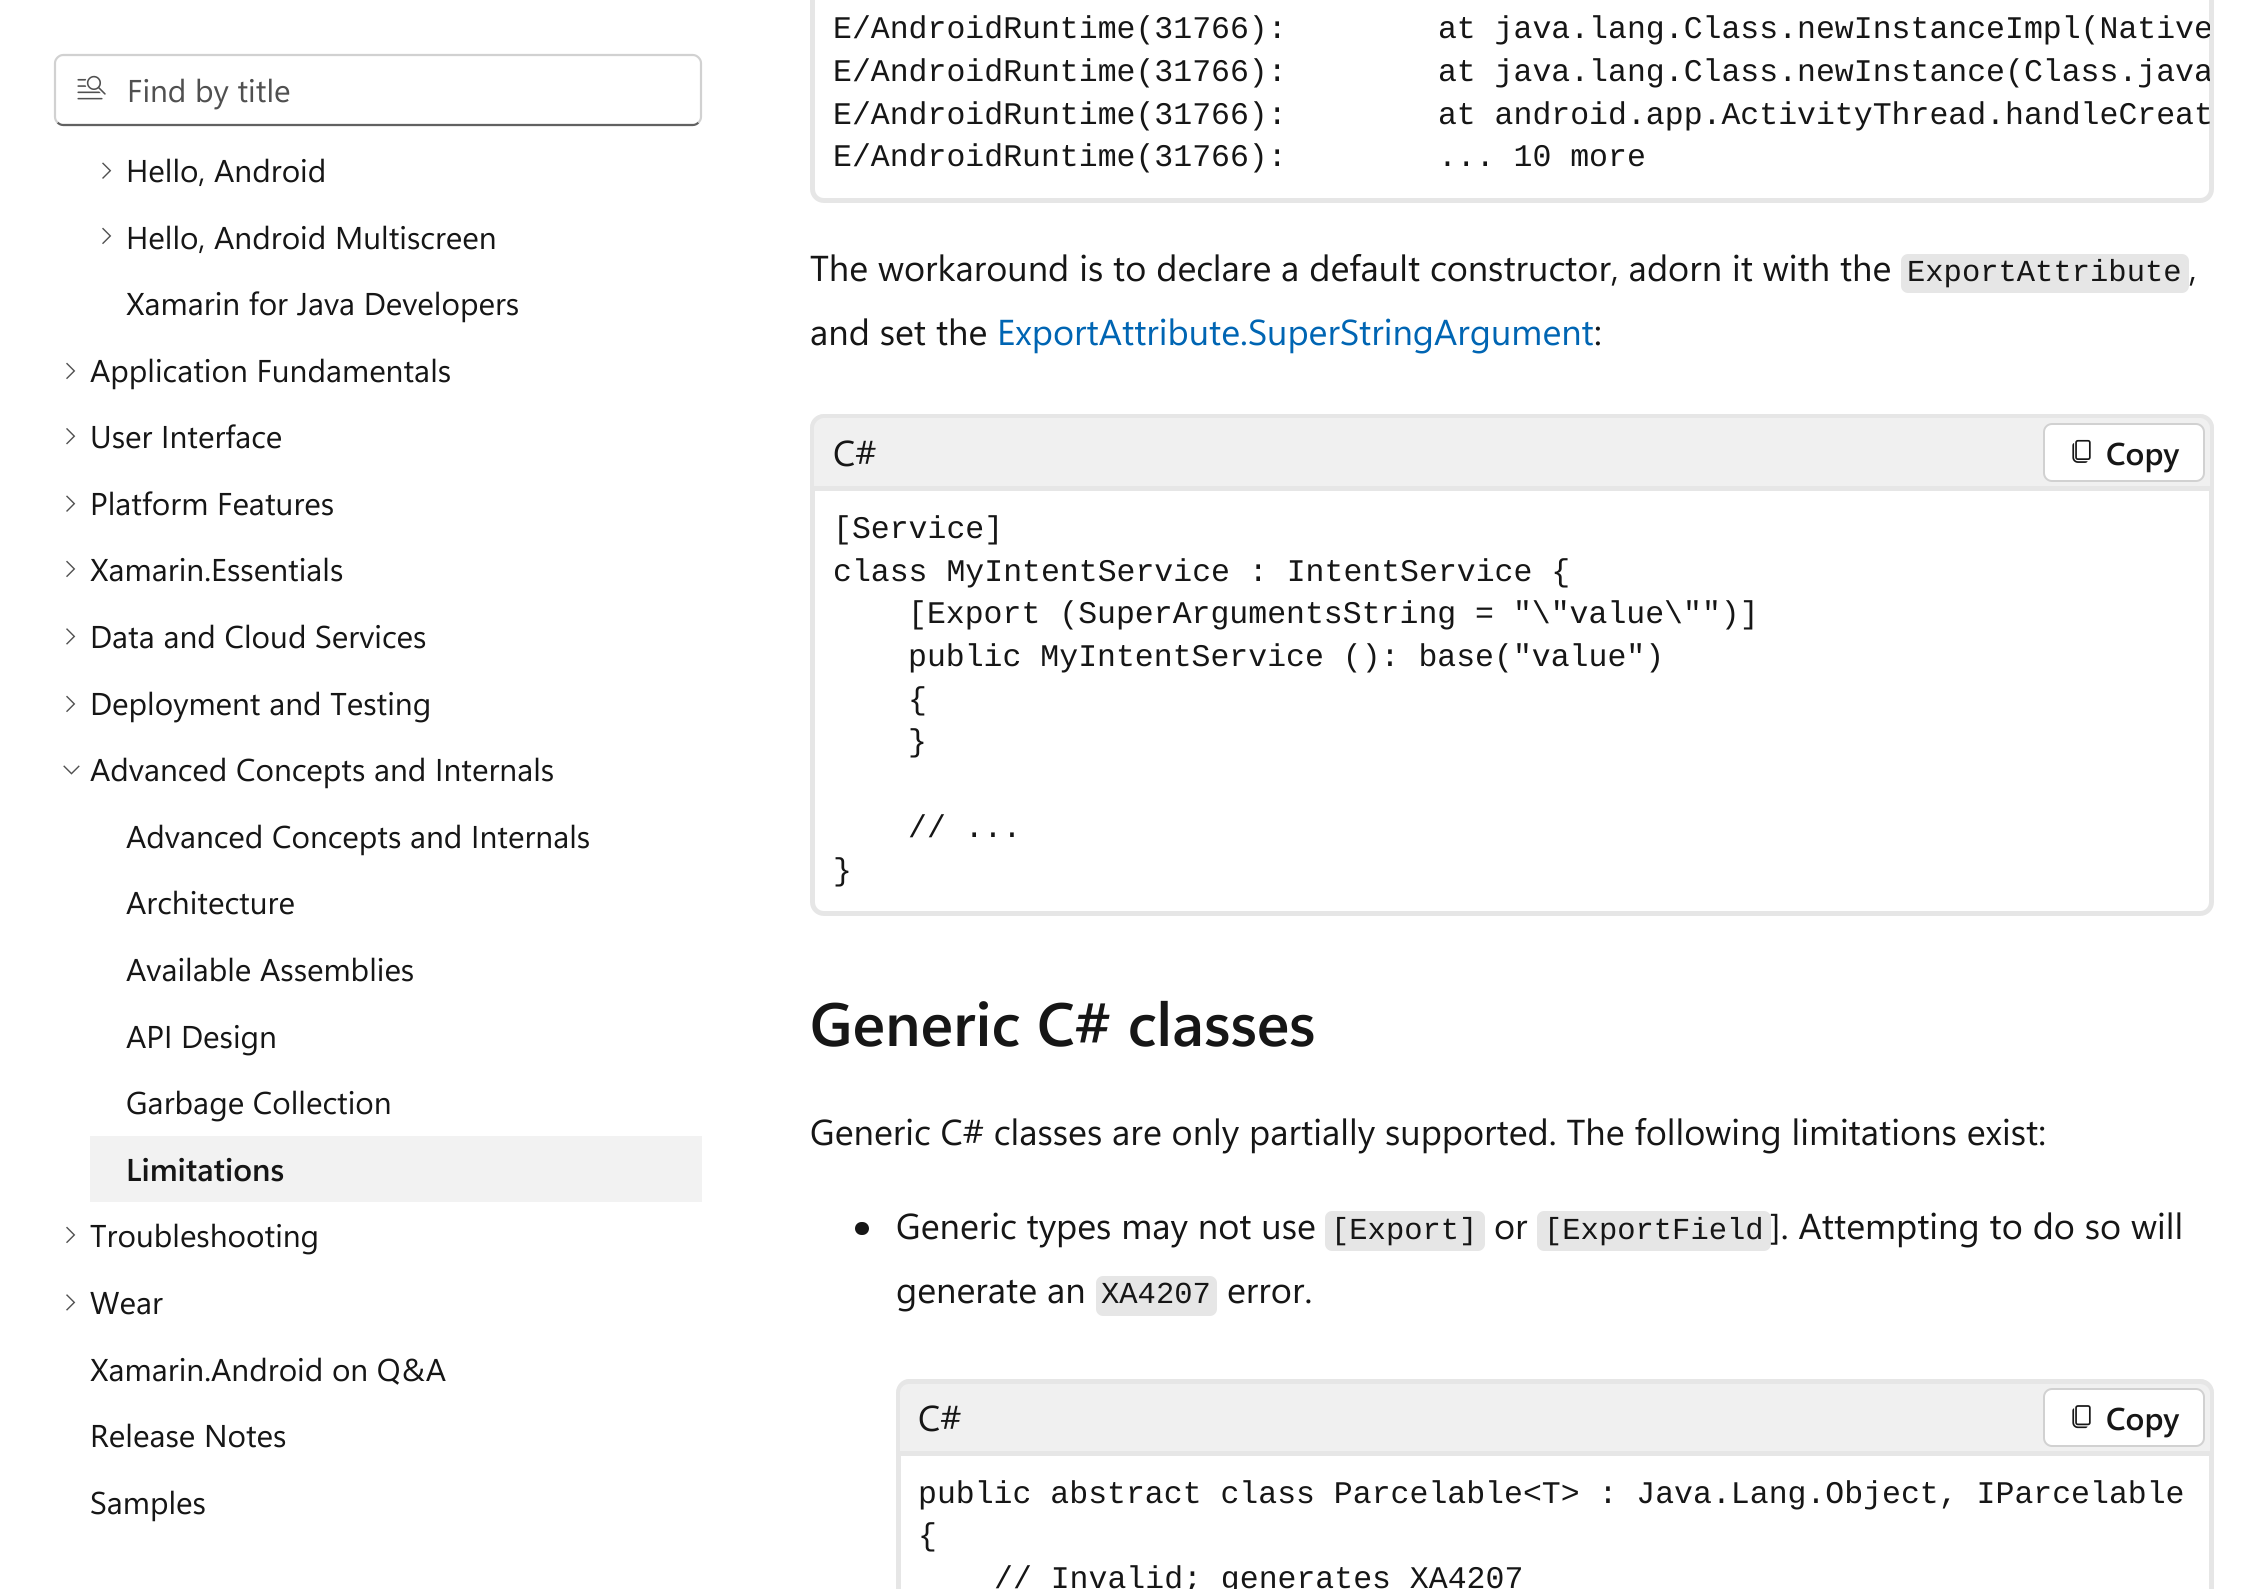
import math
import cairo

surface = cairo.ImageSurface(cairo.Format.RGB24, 2268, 1589)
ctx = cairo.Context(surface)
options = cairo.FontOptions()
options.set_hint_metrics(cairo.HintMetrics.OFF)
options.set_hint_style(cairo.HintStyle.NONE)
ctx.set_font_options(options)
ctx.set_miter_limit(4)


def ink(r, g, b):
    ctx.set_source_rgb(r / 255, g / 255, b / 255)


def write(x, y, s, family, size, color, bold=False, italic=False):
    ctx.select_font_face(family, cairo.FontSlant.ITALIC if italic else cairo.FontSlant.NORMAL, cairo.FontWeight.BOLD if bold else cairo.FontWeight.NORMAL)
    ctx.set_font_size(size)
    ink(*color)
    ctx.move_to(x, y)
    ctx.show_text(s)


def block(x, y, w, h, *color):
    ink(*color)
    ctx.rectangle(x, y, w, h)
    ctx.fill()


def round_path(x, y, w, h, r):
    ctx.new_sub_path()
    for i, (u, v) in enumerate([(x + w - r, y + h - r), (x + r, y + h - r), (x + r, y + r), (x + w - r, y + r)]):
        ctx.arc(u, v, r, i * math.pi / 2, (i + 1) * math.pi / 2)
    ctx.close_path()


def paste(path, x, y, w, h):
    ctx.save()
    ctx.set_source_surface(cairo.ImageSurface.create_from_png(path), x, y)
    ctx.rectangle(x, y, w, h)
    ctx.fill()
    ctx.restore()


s1 = dict(family="Segoe UI", size=31.5, color=(80, 80, 80))
s2 = dict(family="Segoe UI", size=31.5, color=(22, 22, 22))
s3 = dict(family="Segoe UI SemiBold", size=31.5, color=(22, 22, 22))
s4 = dict(family="Liberation Mono", size=31.5, color=(22, 22, 22))
s5 = dict(family="Segoe UI", size=36, color=(22, 22, 22))
s6 = dict(family="Liberation Mono", size=30.5, color=(22, 22, 22))
s7 = dict(family="Segoe UI", size=36, color=(0, 101, 179))
s8 = dict(family="Segoe UI SemiBold", size=61, color=(22, 22, 22))

ink(255, 255, 255)
ctx.paint()
ctx.new_path()
ctx.move_to(698.5, 122.5)
ctx.curve_to(697, 124, 695, 125, 693, 125)
ctx.line_to(63, 125)
ctx.curve_to(61, 125, 59, 124, 57.5, 122.5)
ink(97, 97, 97)
ctx.set_line_width(2.2)
ctx.stroke()
ctx.new_path()
ctx.move_to(57.5, 122.5)
ctx.curve_to(56, 121, 55, 119, 55, 117)
ctx.line_to(55, 63)
ctx.curve_to(55, 61, 56, 59, 57.5, 57.5)
ctx.curve_to(59, 56, 61, 55, 63, 55)
ctx.line_to(693, 55)
ctx.curve_to(695, 55, 697, 56, 698.5, 57.5)
ctx.curve_to(700, 59, 701, 61, 701, 63)
ctx.line_to(701, 117)
ctx.curve_to(701, 119, 700, 121, 698.5, 122.5)
ink(209, 209, 209)
ctx.stroke()
paste("pic1.png", 77, 75, 29, 25)
write(127, 102, "Find by title", **s1)
paste("pic2.png", 102, 162, 10, 17)
write(126, 182, "Hello, Android", **s2)
paste("pic3.png", 102, 227, 10, 18)
write(126, 249, "Hello, Android Multiscreen", **s2)
write(126, 315, "Xamarin for Java Developers", **s2)
paste("pic3.png", 66, 362, 10, 18)
write(90, 382, "Application Fundamentals", **s2)
paste("pic4.png", 66, 428, 10, 17)
write(90, 448, "User Interface", **s2)
paste("pic2.png", 66, 495, 10, 17)
write(90, 515, "Platform Features", **s2)
paste("pic3.png", 66, 560, 10, 18)
write(90, 581, "Xamarin.Essentials", **s2)
paste("pic5.png", 66, 628, 10, 17)
write(90, 648, "Data and Cloud Services", **s2)
paste("pic3.png", 66, 695, 10, 18)
write(90, 715, "Deployment and Testing", **s2)
paste("pic6.png", 63, 765, 17, 10)
write(90, 781, "Advanced Concepts and Internals", **s2)
write(126, 848, "Advanced Concepts and Internals", **s2)
write(126, 914, "Architecture", **s2)
write(126, 981, "Available Assemblies", **s2)
write(126, 1048, "API Design", **s2)
write(126, 1114, "Garbage Collection", **s2)
block(90, 1136, 612, 66, 242, 242, 242)
write(126, 1181, "Limitations", **s3)
paste("pic3.png", 66, 1226, 10, 18)
write(90, 1247, "Troubleshooting", **s2)
paste("pic5.png", 66, 1294, 10, 17)
write(90, 1314, "Wear", **s2)
write(90, 1381, "Xamarin.Android on Q&A", **s2)
write(90, 1447, "Release Notes", **s2)
write(90, 1514, "Samples", **s2)
ctx.new_path()
ctx.move_to(812.5, -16.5)
ctx.line_to(2211.5, -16.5)
ctx.line_to(2211.5, 189)
ctx.curve_to(2211.5, 195.5, 2206.5, 200.5, 2200, 200.5)
ctx.line_to(824, 200.5)
ctx.curve_to(817.5, 200.5, 812.5, 195.5, 812.5, 189)
ctx.close_path()
ink(230, 230, 230)
ctx.set_line_width(5)
ctx.stroke()
ctx.save()
ctx.new_path()
ctx.move_to(815, -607)
ctx.line_to(2210, -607)
ctx.line_to(2210, 189)
ctx.curve_to(2210, 194, 2206, 198, 2201, 198)
ctx.line_to(824, 198)
ctx.curve_to(819, 198, 815, 194, 815, 189)
ctx.close_path()
ctx.clip()
write(833, 38, "E/AndroidRuntime(31766):        at java.lang.Class.newInstanceImpl(Native", **s4)
write(833, 81, "E/AndroidRuntime(31766):        at java.lang.Class.newInstance(Class.java", **s4)
ctx.restore()
write(833, 124, "E/AndroidRuntime(31766):        at android.app.ActivityThread.handleCreat", **s4)
write(833, 166, "E/AndroidRuntime(31766):        ... 10 more", **s4)
write(810, 281, "The workaround is to declare a default constructor, adorn it with the", **s5)
ink(230, 230, 230)
round_path(1901, 254, 288, 39, 7)
ctx.fill()
write(1907, 281, "ExportAttribute", **s6)
write(2189, 281, ",", **s5)
write(810, 345, "and set the", **s5)
write(997, 345, "ExportAttribute.SuperStringArgument", **s7)
write(1594, 345, ":", **s5)
ink(240, 240, 240)
ctx.new_path()
ctx.move_to(824, 414)
ctx.line_to(2200, 414)
ctx.curve_to(2207.5, 414, 2214, 420.5, 2214, 428)
ctx.line_to(2214, 486)
ctx.line_to(810, 486)
ctx.line_to(810, 428)
ctx.curve_to(810, 420.5, 816.5, 414, 824, 414)
ctx.close_path()
ctx.fill()
ink(230, 230, 230)
ctx.set_fill_rule(cairo.FillRule.EVEN_ODD)
ctx.new_path()
ctx.move_to(824, 414)
ctx.line_to(2200, 414)
ctx.curve_to(2208, 414, 2214, 420, 2214, 428)
ctx.line_to(2214, 486)
ctx.line_to(810, 486)
ctx.line_to(810, 428)
ctx.curve_to(810, 420, 816, 414, 824, 414)
ctx.close_path()
ctx.move_to(824, 418)
ctx.line_to(2200, 418)
ctx.curve_to(2205, 418, 2210, 423, 2210, 428)
ctx.line_to(2210, 486)
ctx.line_to(814, 486)
ctx.line_to(814, 428)
ctx.curve_to(814, 423, 819, 418, 824, 418)
ctx.close_path()
ctx.fill()
write(833, 466, "C#", **s5)
ink(255, 255, 255)
round_path(2044, 424, 160, 57, 8)
ctx.fill_preserve()
ink(209, 209, 209)
ctx.set_line_width(2)
ctx.stroke()
paste("pic7.png", 2072, 439, 19, 24)
write(2106, 465, "Copy", **s3)
ctx.new_path()
ctx.move_to(812.5, 488.5)
ctx.line_to(2211.5, 488.5)
ctx.line_to(2211.5, 902)
ctx.curve_to(2211.5, 908.5, 2206.5, 913.5, 2200, 913.5)
ctx.line_to(824, 913.5)
ctx.curve_to(817.5, 913.5, 812.5, 908.5, 812.5, 902)
ctx.close_path()
ink(230, 230, 230)
ctx.set_line_width(5)
ctx.stroke()
write(833, 538, "[Service]", **s4)
write(833, 581, "class MyIntentService : IntentService {", **s4)
write(908, 623, "[Export (SuperArgumentsString = \"\\\"value\\\"\")]", **s4)
write(908, 666, "public MyIntentService (): base(\"value\")", **s4)
write(908, 709, "{", **s4)
write(908, 751, "}", **s4)
write(908, 837, "// ...", **s4)
write(833, 880, "}", **s4)
write(810, 1046, "Generic C# classes", **s8)
write(810, 1145, "Generic C# classes are only partially supported. The following limitations exist:", **s5)
round_path(855, 1222, 14, 13, 6.5)
ctx.fill()
write(896, 1239, "Generic types may not use", **s5)
ink(230, 230, 230)
round_path(1325, 1211, 160, 40, 7)
ctx.fill()
write(1331, 1239, "[Export]", **s6)
write(1494, 1239, "or", **s5)
ink(230, 230, 230)
round_path(1537, 1211, 234, 40, 7)
ctx.fill()
write(1544, 1239, "[ExportField", **s6)
write(1770, 1239, "]. Attempting to do so will", **s5)
write(896, 1303, "generate an", **s5)
ink(230, 230, 230)
round_path(1096, 1276, 121, 40, 7)
ctx.fill()
write(1101, 1303, "XA4207", **s6)
write(1227, 1303, "error.", **s5)
ink(240, 240, 240)
ctx.new_path()
ctx.move_to(910, 1379)
ctx.line_to(2200, 1379)
ctx.curve_to(2207.5, 1379, 2214, 1385.5, 2214, 1393)
ctx.line_to(2214, 1451)
ctx.line_to(896, 1451)
ctx.line_to(896, 1393)
ctx.curve_to(896, 1385.5, 902.5, 1379, 910, 1379)
ctx.close_path()
ctx.fill()
ink(230, 230, 230)
ctx.new_path()
ctx.move_to(909, 1379)
ctx.line_to(2200, 1379)
ctx.curve_to(2208, 1379, 2214, 1385, 2214, 1393)
ctx.line_to(2214, 1451)
ctx.line_to(896, 1451)
ctx.line_to(896, 1393)
ctx.curve_to(896, 1385, 902, 1379, 909, 1379)
ctx.close_path()
ctx.move_to(909, 1384)
ctx.line_to(2200, 1384)
ctx.curve_to(2205, 1384, 2210, 1388, 2210, 1393)
ctx.line_to(2210, 1451)
ctx.line_to(900, 1451)
ctx.line_to(900, 1393)
ctx.curve_to(900, 1388, 904, 1384, 909, 1384)
ctx.close_path()
ctx.fill()
write(918, 1431, "C#", **s5)
ink(255, 255, 255)
round_path(2044, 1389, 160, 57, 8)
ctx.fill_preserve()
ink(209, 209, 209)
ctx.set_line_width(2)
ctx.stroke()
paste("pic8.png", 2072, 1405, 19, 24)
write(2106, 1430, "Copy", **s3)
ctx.rectangle(898.5, 1453.5, 1313, 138)
ink(230, 230, 230)
ctx.set_line_width(5)
ctx.stroke()
write(918, 1503, "public abstract class Parcelable<T> : Java.Lang.Object, IParcelable", **s4)
write(918, 1545, "{", **s4)
write(994, 1588, "// Invalid; generates XA4207", **s4)
surface.write_to_png("screenshot.png")
